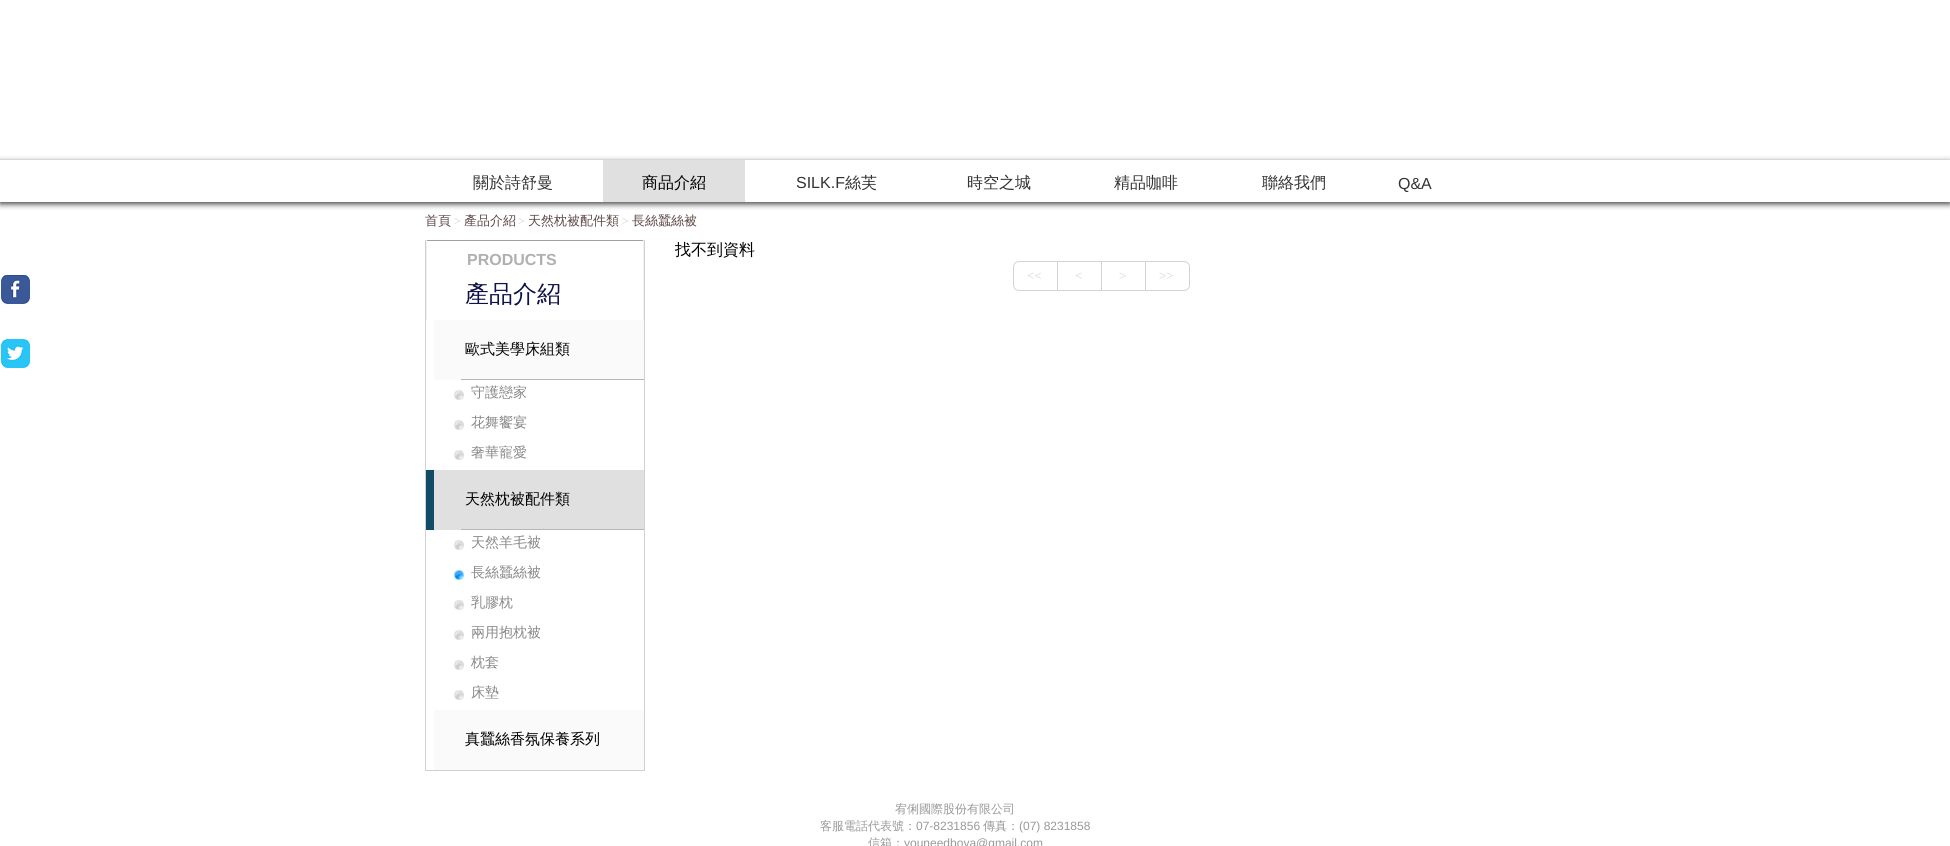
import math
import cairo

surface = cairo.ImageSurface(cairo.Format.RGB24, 1950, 846)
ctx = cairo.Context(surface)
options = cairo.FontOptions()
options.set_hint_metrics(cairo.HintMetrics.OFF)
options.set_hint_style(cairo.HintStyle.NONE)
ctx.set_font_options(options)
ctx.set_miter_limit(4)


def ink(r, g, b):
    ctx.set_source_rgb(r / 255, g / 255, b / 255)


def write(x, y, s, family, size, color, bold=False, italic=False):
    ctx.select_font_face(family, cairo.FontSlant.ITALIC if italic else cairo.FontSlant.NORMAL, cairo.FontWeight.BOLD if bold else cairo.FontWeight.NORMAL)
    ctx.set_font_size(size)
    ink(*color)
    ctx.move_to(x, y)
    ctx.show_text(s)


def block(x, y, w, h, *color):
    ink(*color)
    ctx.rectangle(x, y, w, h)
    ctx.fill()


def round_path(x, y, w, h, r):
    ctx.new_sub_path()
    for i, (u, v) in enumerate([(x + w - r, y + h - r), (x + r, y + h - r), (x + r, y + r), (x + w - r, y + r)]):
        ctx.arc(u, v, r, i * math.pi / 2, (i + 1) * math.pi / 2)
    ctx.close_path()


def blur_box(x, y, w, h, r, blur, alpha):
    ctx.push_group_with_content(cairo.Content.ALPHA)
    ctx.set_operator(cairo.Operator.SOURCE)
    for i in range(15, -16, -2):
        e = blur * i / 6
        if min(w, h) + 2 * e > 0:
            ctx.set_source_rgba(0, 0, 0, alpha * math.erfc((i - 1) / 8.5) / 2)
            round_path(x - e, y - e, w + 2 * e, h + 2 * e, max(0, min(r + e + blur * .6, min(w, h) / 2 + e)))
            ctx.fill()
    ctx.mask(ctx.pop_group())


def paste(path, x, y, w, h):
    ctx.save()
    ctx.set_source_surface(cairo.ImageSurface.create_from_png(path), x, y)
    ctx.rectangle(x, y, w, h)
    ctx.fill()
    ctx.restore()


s1 = dict(family="WenQuanYi Zen Hei Medium", size=16, color=(51, 51, 51))
s2 = dict(family="WenQuanYi Zen Hei Medium", size=16, color=(0, 0, 0))
s3 = dict(family="Liberation Sans", size=16, color=(51, 51, 51))
s4 = dict(family="WenQuanYi Zen Hei Medium", size=13, color=(94, 70, 69))
s5 = dict(family="Liberation Serif", size=12, color=(206, 204, 204))
s6 = dict(family="Liberation Sans", size=16, color=(176, 176, 176), bold=True)
s7 = dict(family="WenQuanYi Zen Hei Medium", size=24, color=(15, 18, 72))
s8 = dict(family="WenQuanYi Zen Hei Medium", size=15, color=(0, 0, 0))
s9 = dict(family="WenQuanYi Zen Hei Medium", size=14, color=(136, 136, 136))
s10 = dict(family="Liberation Serif", size=13, color=(211, 211, 211))
s11 = dict(family="WenQuanYi Zen Hei Medium", size=12, color=(153, 153, 153))
s12 = dict(family="Liberation Sans", size=12, color=(153, 153, 153))

ink(255, 255, 255)
ctx.paint()
ctx.save()
ctx.set_fill_rule(cairo.FillRule.EVEN_ODD)
ctx.new_path()
ctx.move_to(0, 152)
ctx.line_to(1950, 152)
ctx.line_to(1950, 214)
ctx.line_to(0, 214)
ctx.close_path()
ctx.move_to(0, 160)
ctx.line_to(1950, 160)
ctx.line_to(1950, 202)
ctx.line_to(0, 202)
ctx.close_path()
ctx.clip()
ink(0, 0, 0)
blur_box(0, 162, 1950, 42, 0, 3, 0.75)
ctx.restore()
write(473, 188, "關於詩舒曼", **s1)
block(603, 160, 142, 42, 224, 224, 224)
write(642, 188, "商品介紹", **s2)
write(796, 188, "SILK.F", **s3)
write(845, 188, "絲芙", **s1)
write(967, 188, "時空之城", **s1)
write(1114, 188, "精品咖啡", **s1)
write(1262, 188, "聯絡我們", **s1)
write(1398, 189, "Q&A", **s3)
write(425, 225, "首頁", **s4)
write(454, 225, ">", **s5)
write(464, 225, "產品介紹", **s4)
write(518, 225, ">", **s5)
write(528, 225, "天然枕被配件類", **s4)
write(622, 225, ">", **s5)
write(632, 225, "長絲蠶絲被", **s4)
block(644, 240, 1, 531, 208, 208, 208)
block(425, 770, 220, 1, 208, 208, 208)
block(425, 240, 1, 531, 208, 208, 208)
block(426, 240, 218, 1, 160, 160, 160)
block(643, 240, 1, 80, 240, 240, 240)
block(426, 240, 1, 80, 240, 240, 240)
write(467, 265, "PRODUCTS", **s6)
write(465, 302, "產品介紹", **s7)
block(434, 320, 210, 60, 250, 250, 250)
block(461, 379, 183, 1, 183, 183, 183)
write(465, 354, "歐式美學床組類", **s8)
paste("pic1.png", 454, 390, 10, 10)
write(471, 397, "守護戀家", **s9)
paste("pic1.png", 454, 420, 10, 10)
write(471, 427, "花舞饗宴", **s9)
paste("pic1.png", 454, 450, 10, 10)
write(471, 457, "奢華寵愛", **s9)
block(434, 470, 210, 60, 224, 224, 224)
block(426, 470, 8, 60, 18, 75, 104)
block(461, 529, 183, 1, 183, 183, 183)
write(465, 504, "天然枕被配件類", **s8)
paste("pic1.png", 454, 540, 10, 10)
write(471, 547, "天然羊毛被", **s9)
paste("pic2.png", 454, 570, 10, 10)
write(471, 577, "長絲蠶絲被", **s9)
paste("pic1.png", 454, 600, 10, 10)
write(471, 607, "乳膠枕", **s9)
paste("pic1.png", 454, 630, 10, 10)
write(471, 637, "兩用抱枕被", **s9)
paste("pic1.png", 454, 660, 10, 10)
write(471, 667, "枕套", **s9)
paste("pic1.png", 454, 690, 10, 10)
write(471, 697, "床墊", **s9)
block(434, 710, 210, 60, 250, 250, 250)
write(465, 744, "真蠶絲香氛保養系列", **s8)
write(675, 255, "找不到資料", **s2)
ctx.new_path()
ctx.move_to(1019, 261.5)
ctx.line_to(1057.5, 261.5)
ctx.line_to(1057.5, 290.5)
ctx.line_to(1019, 290.5)
ctx.curve_to(1016, 290.5, 1013.5, 288, 1013.5, 285)
ctx.line_to(1013.5, 267)
ctx.curve_to(1013.5, 264, 1016, 261.5, 1019, 261.5)
ctx.close_path()
ink(211, 211, 211)
ctx.set_line_width(1)
ctx.stroke()
write(1027, 280, "<<", **s10)
ctx.rectangle(1057.5, 261.5, 44, 29)
ctx.stroke()
write(1075, 280, "<", **s10)
ctx.rectangle(1101.5, 261.5, 44, 29)
ctx.stroke()
write(1119, 280, ">", **s10)
ink(255, 255, 255)
ctx.new_path()
ctx.move_to(1145.5, 261.5)
ctx.line_to(1184, 261.5)
ctx.curve_to(1187, 261.5, 1189.5, 264, 1189.5, 267)
ctx.line_to(1189.5, 285)
ctx.curve_to(1189.5, 288, 1187, 290.5, 1184, 290.5)
ctx.line_to(1145.5, 290.5)
ctx.close_path()
ctx.fill_preserve()
ink(211, 211, 211)
ctx.stroke()
write(1159, 280, ">>", **s10)
paste("pic3.png", 1, 275, 29, 29)
paste("pic4.png", 1, 339, 29, 29)
write(895, 813, "宥俐國際股份有限公司", **s11)
write(820, 830, "客服電話代表號：", **s11)
write(916, 830, "07-8231856", **s12)
write(983, 830, "傳真：", **s11)
write(1019, 830, "(07) 8231858", **s12)
write(868, 847, "信箱：", **s11)
write(904, 847, "youneedboya@gmail.com", **s12)
surface.write_to_png("screenshot.png")
